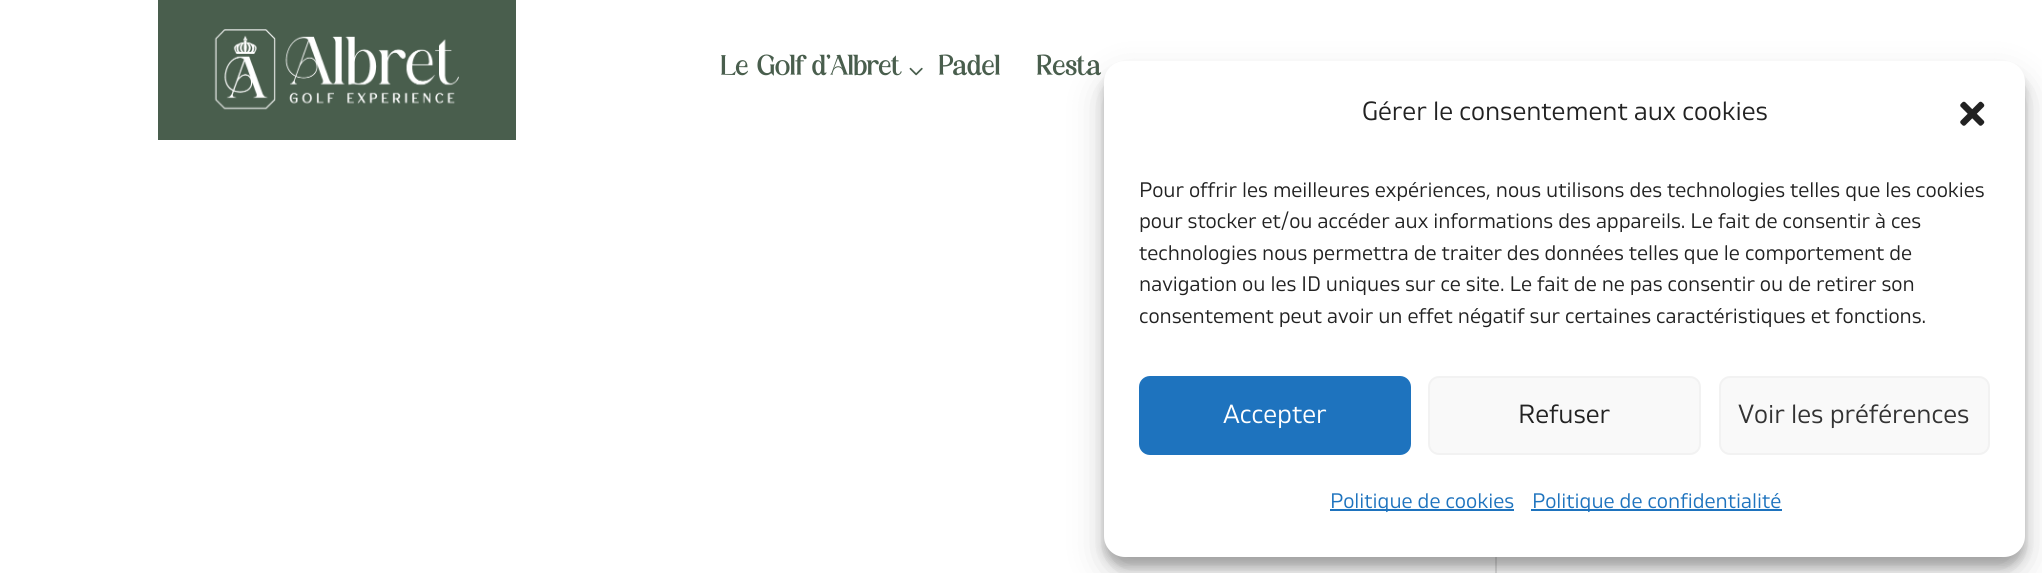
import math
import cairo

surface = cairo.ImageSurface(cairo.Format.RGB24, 2042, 573)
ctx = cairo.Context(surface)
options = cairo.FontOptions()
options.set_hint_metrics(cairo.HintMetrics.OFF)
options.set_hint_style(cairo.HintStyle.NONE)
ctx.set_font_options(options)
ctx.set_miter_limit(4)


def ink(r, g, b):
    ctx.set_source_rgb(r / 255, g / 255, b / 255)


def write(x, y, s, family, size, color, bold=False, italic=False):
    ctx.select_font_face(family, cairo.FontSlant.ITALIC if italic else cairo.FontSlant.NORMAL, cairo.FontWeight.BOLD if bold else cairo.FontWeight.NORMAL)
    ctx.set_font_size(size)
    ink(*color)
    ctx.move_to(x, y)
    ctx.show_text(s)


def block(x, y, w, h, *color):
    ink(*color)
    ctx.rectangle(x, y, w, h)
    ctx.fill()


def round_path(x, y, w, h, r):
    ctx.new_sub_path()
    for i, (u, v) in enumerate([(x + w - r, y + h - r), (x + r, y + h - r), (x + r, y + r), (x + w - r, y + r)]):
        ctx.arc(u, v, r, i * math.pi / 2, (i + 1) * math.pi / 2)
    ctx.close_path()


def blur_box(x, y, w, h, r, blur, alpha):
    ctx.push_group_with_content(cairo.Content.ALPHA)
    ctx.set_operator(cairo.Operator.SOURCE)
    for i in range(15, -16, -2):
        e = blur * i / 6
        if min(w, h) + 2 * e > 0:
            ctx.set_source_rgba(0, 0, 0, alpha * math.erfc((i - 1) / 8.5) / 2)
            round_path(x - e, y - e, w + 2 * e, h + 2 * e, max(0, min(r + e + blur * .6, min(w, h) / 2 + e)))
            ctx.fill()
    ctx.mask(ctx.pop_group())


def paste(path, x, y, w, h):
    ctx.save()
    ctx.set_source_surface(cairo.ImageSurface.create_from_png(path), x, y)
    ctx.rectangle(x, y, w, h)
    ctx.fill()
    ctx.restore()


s1 = dict(family="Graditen", size=27, color=(73, 94, 77), bold=True)
s2 = dict(family="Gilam", size=26.25, color=(34, 34, 34))
s3 = dict(family="Gilam", size=21, color=(34, 34, 34))
s4 = dict(family="Gilam", size=26.25, color=(255, 255, 255))
s5 = dict(family="Gilam", size=26.25, color=(51, 51, 51))
s6 = dict(family="Gilam", size=21, color=(30, 115, 190))

ink(255, 255, 255)
ctx.paint()
block(158, 0, 358, 140, 73, 94, 77)
paste("pic1.png", 214, 29, 245, 81)
write(720, 75, "Le Golf d’Albret", **s1)
paste("pic2.png", 909, 67, 14, 9)
write(938, 75, "Padel", **s1)
write(1036, 75, "Resta", **s1)
block(1495, 557, 2, 16, 226, 226, 226)
ink(0, 0, 0)
blur_box(1104, 72, 921, 495, 21, 5, 0.23)
blur_box(1104, 79, 921, 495, 21, 17.5, 0.19)
ink(255, 255, 255)
round_path(1104, 61, 921, 496, 21)
ctx.fill()
write(1362, 120, "Gérer le consentement aux cookies", **s2)
paste("pic3.png", 1960, 101, 25, 25)
write(1139, 197, "Pour offrir les meilleures expériences, nous utilisons des technologies telles que les cookies", **s3)
write(1139, 228, "pour stocker et/ou accéder aux informations des appareils. Le fait de consentir à ces", **s3)
write(1139, 260, "technologies nous permettra de traiter des données telles que le comportement de", **s3)
write(1139, 291, "navigation ou les ID uniques sur ce site. Le fait de ne pas consentir ou de retirer son", **s3)
write(1139, 323, "consentement peut avoir un effet négatif sur certaines caractéristiques et fonctions.", **s3)
ink(30, 115, 190)
round_path(1140, 377, 270, 77, 10)
ctx.fill_preserve()
ctx.stroke()
write(1223, 423, "Accepter", **s4)
ink(249, 249, 249)
round_path(1429, 377, 271, 77, 10)
ctx.fill_preserve()
ink(242, 242, 242)
ctx.stroke()
write(1518, 423, "Refuser", **s2)
ink(249, 249, 249)
round_path(1720, 377, 269, 77, 10)
ctx.fill_preserve()
ink(242, 242, 242)
ctx.stroke()
write(1738, 423, "Voir les préférences", **s5)
block(1330, 509, 184, 2, 30, 115, 190)
write(1330, 508, "Politique de cookies", **s6)
block(1531, 509, 251, 2, 30, 115, 190)
write(1532, 508, "Politique de confidentialité", **s6)
surface.write_to_png("screenshot.png")
